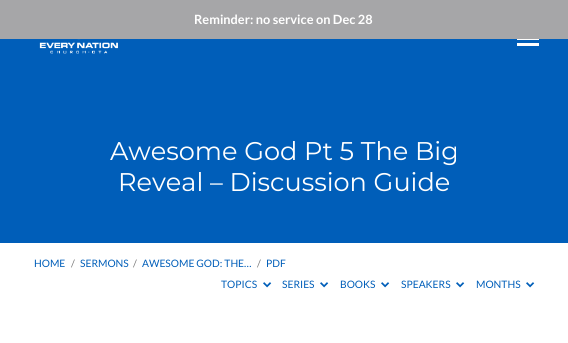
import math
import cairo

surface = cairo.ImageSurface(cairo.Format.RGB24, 568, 343)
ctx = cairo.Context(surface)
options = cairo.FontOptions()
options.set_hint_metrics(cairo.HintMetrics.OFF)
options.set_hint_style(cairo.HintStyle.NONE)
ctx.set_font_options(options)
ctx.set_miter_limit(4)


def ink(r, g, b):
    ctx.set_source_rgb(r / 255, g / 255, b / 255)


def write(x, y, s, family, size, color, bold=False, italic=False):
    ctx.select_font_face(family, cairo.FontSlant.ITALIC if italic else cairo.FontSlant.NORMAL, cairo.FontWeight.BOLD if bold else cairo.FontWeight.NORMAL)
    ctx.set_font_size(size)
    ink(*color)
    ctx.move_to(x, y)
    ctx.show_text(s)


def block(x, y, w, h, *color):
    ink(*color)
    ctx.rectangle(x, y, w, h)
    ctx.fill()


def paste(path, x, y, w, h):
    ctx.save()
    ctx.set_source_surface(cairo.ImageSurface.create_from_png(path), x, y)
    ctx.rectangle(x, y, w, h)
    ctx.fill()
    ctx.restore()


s1 = dict(family="Lato", size=12.75, color=(255, 255, 255), bold=True)
s2 = dict(family="Montserrat", size=25.6, color=(255, 255, 255))
s3 = dict(family="Lato", size=10.25, color=(0, 94, 185))
s4 = dict(family="Lato", size=10.25, color=(119, 119, 119))

ink(255, 255, 255)
ctx.paint()
block(0, 0, 568, 39, 166, 166, 168)
write(194, 24, "Reminder: no service on Dec 28", **s1)
block(0, 39, 568, 204, 0, 94, 185)
paste("pic1.png", 39, 39, 79, 15)
block(517, 39, 22, 1, 255, 255, 255)
block(517, 43, 22, 3, 255, 255, 255)
write(110, 160, "Awesome God Pt 5 The Big", **s2)
write(118, 191, "Reveal – Discussion Guide", **s2)
write(34, 267, "HOME", **s3)
write(71, 267, "/", **s4)
write(80, 267, "SERMONS", **s3)
write(133, 267, "/", **s4)
write(142, 267, "AWESOME GOD: THE…", **s3)
write(257, 267, "/", **s4)
write(266, 267, "PDF", **s3)
write(221, 288, "TOPICS", **s3)
paste("pic2.png", 263, 282, 9, 6)
write(282, 288, "SERIES", **s3)
paste("pic2.png", 320, 282, 9, 6)
write(340, 288, "BOOKS", **s3)
paste("pic2.png", 381, 282, 9, 6)
write(401, 288, "SPEAKERS", **s3)
paste("pic2.png", 456, 282, 9, 6)
write(476, 288, "MONTHS", **s3)
paste("pic2.png", 526, 282, 9, 6)
surface.write_to_png("screenshot.png")
